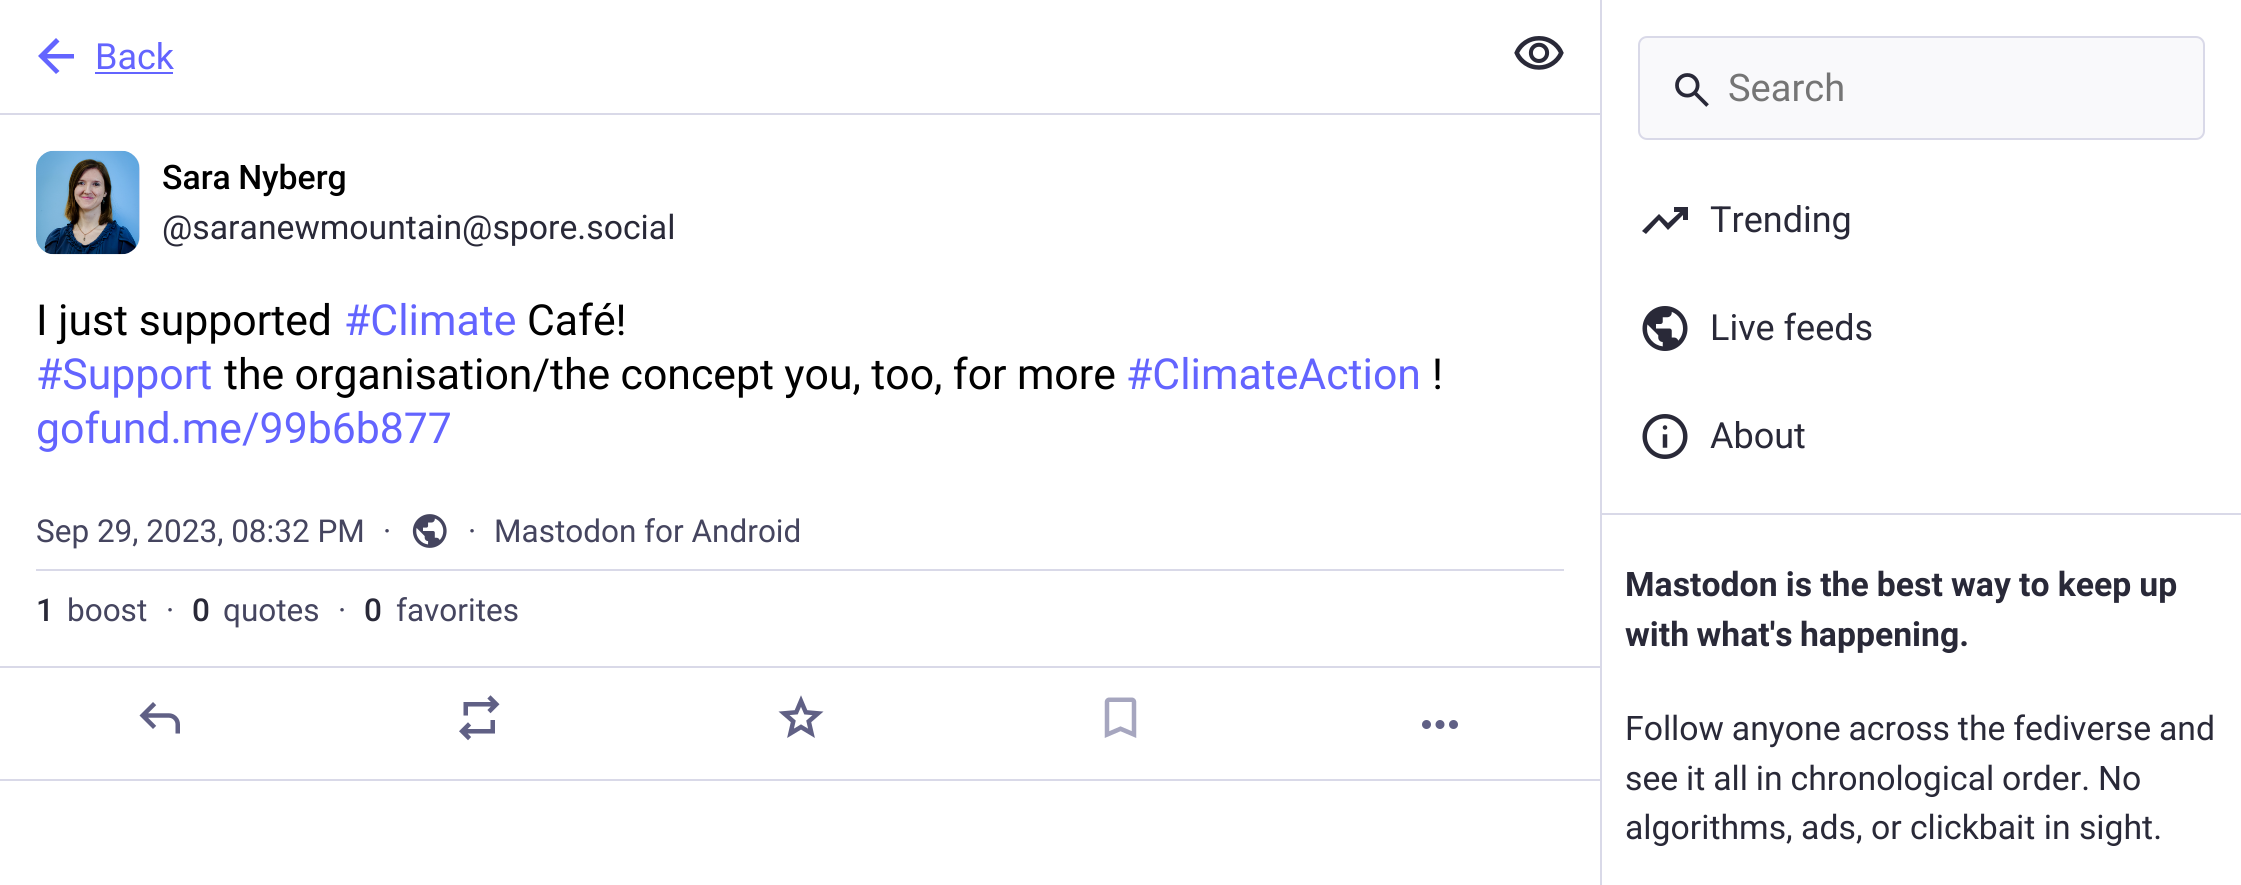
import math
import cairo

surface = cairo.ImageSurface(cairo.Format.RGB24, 2241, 885)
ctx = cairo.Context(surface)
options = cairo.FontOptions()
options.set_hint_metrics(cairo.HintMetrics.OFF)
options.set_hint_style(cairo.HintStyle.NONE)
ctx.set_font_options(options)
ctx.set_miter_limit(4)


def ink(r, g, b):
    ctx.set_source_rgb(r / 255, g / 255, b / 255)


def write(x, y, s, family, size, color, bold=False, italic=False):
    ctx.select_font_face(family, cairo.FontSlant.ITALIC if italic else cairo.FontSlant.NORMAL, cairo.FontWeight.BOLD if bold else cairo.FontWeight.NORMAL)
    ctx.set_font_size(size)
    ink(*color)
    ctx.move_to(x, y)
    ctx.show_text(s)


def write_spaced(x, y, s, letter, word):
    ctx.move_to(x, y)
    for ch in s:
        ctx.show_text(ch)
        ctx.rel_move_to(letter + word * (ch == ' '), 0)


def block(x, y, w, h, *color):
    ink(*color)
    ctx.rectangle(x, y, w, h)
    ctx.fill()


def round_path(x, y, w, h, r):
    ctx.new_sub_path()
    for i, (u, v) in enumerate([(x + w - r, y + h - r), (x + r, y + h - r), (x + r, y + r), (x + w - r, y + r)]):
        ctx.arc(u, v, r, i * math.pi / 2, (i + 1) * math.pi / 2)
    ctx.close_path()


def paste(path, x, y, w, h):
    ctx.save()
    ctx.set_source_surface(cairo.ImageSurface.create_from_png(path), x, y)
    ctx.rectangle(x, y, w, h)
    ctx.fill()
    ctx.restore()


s1 = dict(family="Roboto", size=36, color=(99, 100, 255))
s2 = dict(family="Roboto", size=33.75, color=(41, 41, 56))
s3 = dict(family="Roboto", size=42.75, color=(0, 0, 0))
s4 = dict(family="Roboto", size=42.75, color=(99, 100, 255))
s5 = dict(family="Roboto", size=31.5, color=(69, 69, 95))
s6 = dict(family="Roboto Medium", size=31.5, color=(41, 41, 56))
s7 = dict(family="Roboto", size=38, color=(117, 117, 117))
s8 = dict(family="Roboto", size=36, color=(41, 41, 56))

ink(255, 255, 255)
ctx.paint()
block(0, 113, 1600, 2, 217, 217, 232)
ink(99, 100, 255)
ctx.new_path()
ctx.move_to(47, 58.5)
ctx.line_to(59.5, 71)
ctx.line_to(56, 74)
ctx.line_to(38, 56)
ctx.line_to(56, 38)
ctx.line_to(59.5, 41.5)
ctx.line_to(47, 54)
ctx.line_to(74, 54)
ctx.line_to(74, 58.5)
ctx.close_path()
ctx.fill()
write(95, 69, "Back", **s1)
block(95, 72, 78, 2, 99, 100, 255)
paste("pic1.png", 1514, 36, 50, 34)
ink(232, 230, 240)
round_path(36, 151, 104, 103, 18)
ctx.fill()
paste("pic2.png", 36, 150, 104, 105)
ctx.select_font_face("Roboto Medium")
ctx.set_font_size(33.75)
ink(0, 0, 0)
write_spaced(162, 189, "Sara Nyberg", 0, -1)
write(162, 239, "@saranewmountain@spore.social", **s2)
write(36, 335, "I just supported", **s3)
write(344, 335, "#Climate", **s4)
write(527, 335, "Café!", **s3)
write(36, 389, "#Support", **s4)
ink(0, 0, 0)
write_spaced(224, 389, "the organisation/the concept you, too, for more", 0, -0.25)
write(1126, 389, "#ClimateAction", **s4)
write(1432, 389, "!", **s3)
write(36, 443, "gofund.me/99b6b877", **s4)
block(36, 569, 1528, 2, 217, 217, 232)
write(36, 542, "Sep 29, 2023, 08:32 PM", **s5)
write(383, 542, "·", **s5)
paste("pic3.png", 412, 514, 35, 34)
write(468, 542, "·", **s5)
write(494, 542, "Mastodon for Android", **s5)
write(36, 621, "1", **s6)
write(67, 621, "boost", **s5)
write(166, 621, "·", **s5)
write(192, 621, "0", **s6)
write(223, 621, "quotes", **s5)
write(338, 621, "·", **s5)
write(364, 621, "0", **s6)
write(396, 621, "favorites", **s5)
block(0, 666, 1600, 2, 217, 217, 232)
block(0, 779, 1600, 2, 217, 217, 232)
paste("pic4.png", 139, 702, 41, 32)
paste("pic5.png", 459, 695, 41, 46)
paste("pic6.png", 778, 695, 46, 43)
paste("pic7.png", 1104, 697, 33, 41)
paste("pic8.png", 1422, 720, 36, 9)
block(1600, 0, 2, 885, 217, 217, 232)
ink(249, 249, 251)
round_path(1639, 37, 565, 102, 8)
ctx.fill_preserve()
ink(217, 217, 232)
ctx.stroke()
paste("pic9.png", 1675, 73, 34, 34)
write(1728, 101, "Search", **s7)
ink(41, 41, 56)
ctx.new_path()
ctx.move_to(1646, 234)
ctx.line_to(1642, 231)
ctx.line_to(1659, 214)
ctx.line_to(1668, 223)
ctx.line_to(1680, 212)
ctx.line_to(1674, 212)
ctx.line_to(1674, 207)
ctx.line_to(1688, 207)
ctx.line_to(1688, 220)
ctx.line_to(1683, 220)
ctx.line_to(1683, 215)
ctx.line_to(1668, 230)
ctx.line_to(1659, 220)
ctx.close_path()
ctx.fill()
write(1710, 232, "Trending", **s8)
paste("pic10.png", 1642, 306, 46, 45)
write(1710, 340, "Live feeds", **s8)
paste("pic11.png", 1642, 414, 46, 45)
write(1710, 448, "About", **s8)
block(1602, 513, 639, 2, 217, 217, 232)
ctx.select_font_face("Roboto", cairo.FontSlant.NORMAL, cairo.FontWeight.BOLD)
ctx.set_font_size(33.75)
ink(41, 41, 56)
write_spaced(1625, 596, "Mastodon is the best way to keep up", 0, -0.25)
write_spaced(1625, 646, "with what's happening.", 0, -1)
ctx.select_font_face("Roboto")
write_spaced(1625, 740, "Follow anyone across the fediverse and", 0, -0.5)
write_spaced(1625, 790, "see it all in chronological order. No", 0, -0.5)
write(1625, 839, "algorithms, ads, or clickbait in sight.", **s2)
surface.write_to_png("screenshot.png")
